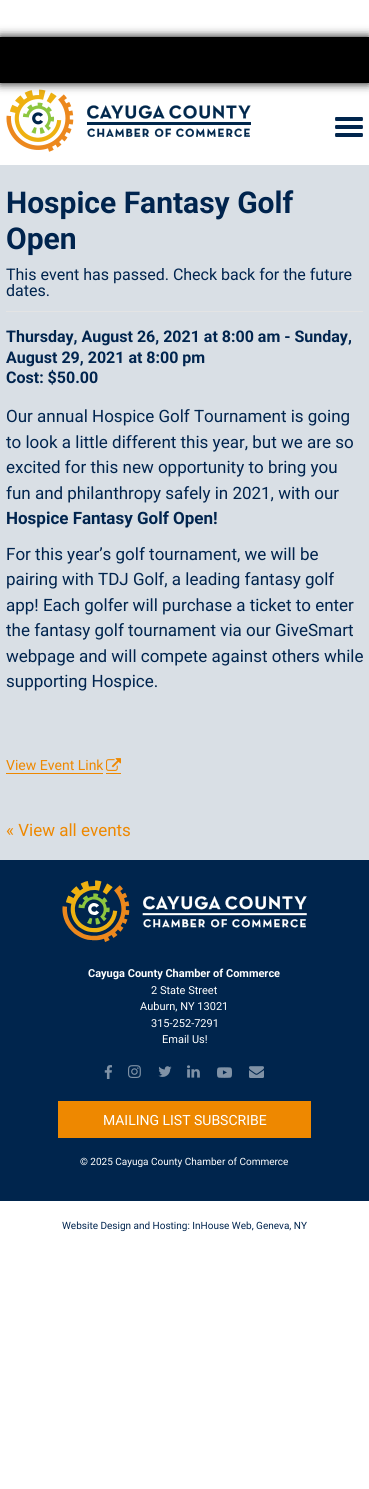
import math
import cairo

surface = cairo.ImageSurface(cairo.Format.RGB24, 369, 1489)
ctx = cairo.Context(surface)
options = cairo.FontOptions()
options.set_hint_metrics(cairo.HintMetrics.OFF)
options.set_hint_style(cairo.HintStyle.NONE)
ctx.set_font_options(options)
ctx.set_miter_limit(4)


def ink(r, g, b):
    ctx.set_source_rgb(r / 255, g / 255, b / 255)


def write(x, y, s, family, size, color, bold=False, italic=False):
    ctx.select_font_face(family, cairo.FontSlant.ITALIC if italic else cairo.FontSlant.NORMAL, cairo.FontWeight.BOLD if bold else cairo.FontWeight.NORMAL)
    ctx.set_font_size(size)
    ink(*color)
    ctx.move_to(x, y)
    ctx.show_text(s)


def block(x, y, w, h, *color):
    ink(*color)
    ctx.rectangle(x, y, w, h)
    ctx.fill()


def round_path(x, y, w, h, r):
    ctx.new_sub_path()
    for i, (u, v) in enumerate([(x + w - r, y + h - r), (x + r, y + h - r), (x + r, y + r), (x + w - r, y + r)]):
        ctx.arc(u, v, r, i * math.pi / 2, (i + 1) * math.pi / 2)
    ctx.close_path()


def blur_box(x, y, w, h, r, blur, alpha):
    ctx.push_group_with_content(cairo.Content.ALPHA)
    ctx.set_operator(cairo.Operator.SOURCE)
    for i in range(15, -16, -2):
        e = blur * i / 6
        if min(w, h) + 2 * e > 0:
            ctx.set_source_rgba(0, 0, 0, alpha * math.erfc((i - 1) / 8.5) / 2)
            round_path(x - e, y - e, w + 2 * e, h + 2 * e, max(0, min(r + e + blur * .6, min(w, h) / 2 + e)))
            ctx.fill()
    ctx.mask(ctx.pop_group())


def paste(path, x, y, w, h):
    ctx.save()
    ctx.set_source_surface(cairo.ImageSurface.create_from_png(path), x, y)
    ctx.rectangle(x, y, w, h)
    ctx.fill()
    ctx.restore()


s1 = dict(family="Roboto", size=30, color=(0, 36, 78), bold=True)
s2 = dict(family="Roboto", size=16, color=(0, 36, 78))
s3 = dict(family="Roboto", size=16, color=(0, 36, 78), bold=True)
s4 = dict(family="Roboto", size=17, color=(0, 36, 78))
s5 = dict(family="Roboto", size=17, color=(0, 36, 78), bold=True)
s6 = dict(family="Roboto", size=14, color=(238, 136, 0))
s7 = dict(family="Roboto", size=17, color=(238, 136, 0))
s8 = dict(family="Roboto", size=11, color=(255, 255, 255), bold=True)
s9 = dict(family="Roboto", size=11, color=(255, 255, 255))
s10 = dict(family="Roboto", size=14, color=(255, 255, 255))
s11 = dict(family="Roboto", size=10, color=(255, 255, 255))
s12 = dict(family="Roboto", size=10, color=(0, 36, 78))

ink(255, 255, 255)
ctx.paint()
paste("pic1.png", 6, 89, 245, 63)
ink(0, 0, 0)
blur_box(0, 37, 369, 46, 0, 5, 1)
block(0, 37, 369, 46, 0, 0, 0)
paste("pic2.png", 335, 117, 28, 20)
block(0, 165, 369, 695, 217, 223, 229)
write(6, 213, "Hospice Fantasy Golf", **s1)
write(6, 249, "Open", **s1)
block(6, 311, 357, 1, 228, 228, 228)
write(6, 280, "This event has passed. Check back for the future", **s2)
write(6, 296, "dates.", **s2)
write(6, 342, "Thursday, August 26, 2021 at 8:00 am - Sunday,", **s3)
write(6, 363, "August 29, 2021 at 8:00 pm", **s3)
write(6, 383, "Cost: $50.00", **s3)
write(6, 422, "Our annual Hospice Golf Tournament is going", **s4)
write(6, 448, "to look a little different this year, but we are so", **s4)
write(6, 473, "excited for this new opportunity to bring you", **s4)
write(6, 499, "fun and philanthropy safely in 2021, with our", **s4)
write(6, 524, "Hospice Fantasy Golf Open!", **s5)
write(6, 560, "For this year’s golf tournament, we will be", **s4)
write(6, 585, "pairing with TDJ Golf, a leading fantasy golf", **s4)
write(6, 611, "app! Each golfer will purchase a ticket to enter", **s4)
write(6, 636, "the fantasy golf tournament via our GiveSmart", **s4)
write(6, 662, "webpage and will compete against others while", **s4)
write(6, 687, "supporting Hospice.", **s4)
write(6, 770, "View Event Link", **s6)
block(6, 773, 97, 1, 238, 136, 0)
block(106, 773, 15, 1, 238, 136, 0)
paste("pic3.png", 106, 758, 15, 13)
write(6, 836, "« View all events", **s7)
block(0, 860, 369, 341, 0, 37, 77)
paste("pic4.png", 62, 880, 245, 62)
write(88, 977, "Cayuga County Chamber of Commerce", **s8)
write(151, 994, "2 State Street", **s9)
write(140, 1010, "Auburn, NY 13021", **s9)
write(151, 1027, "315-252-7291", **s9)
write(162, 1043, "Email Us!", **s9)
paste("pic5.png", 104, 1065, 8, 14)
paste("pic6.png", 128, 1065, 13, 13)
paste("pic7.png", 158, 1066, 14, 11)
paste("pic8.png", 187, 1065, 13, 13)
paste("pic9.png", 217, 1067, 15, 11)
paste("pic10.png", 249, 1066, 15, 12)
block(58, 1101, 253, 37, 238, 136, 0)
write(103, 1125, "MAILING LIST SUBSCRIBE", **s10)
write(80, 1165, "© 2025 Cayuga County Chamber of Commerce", **s11)
write(62, 1229, "Website Design and Hosting: InHouse Web, Geneva, NY", **s12)
surface.write_to_png("screenshot.png")
